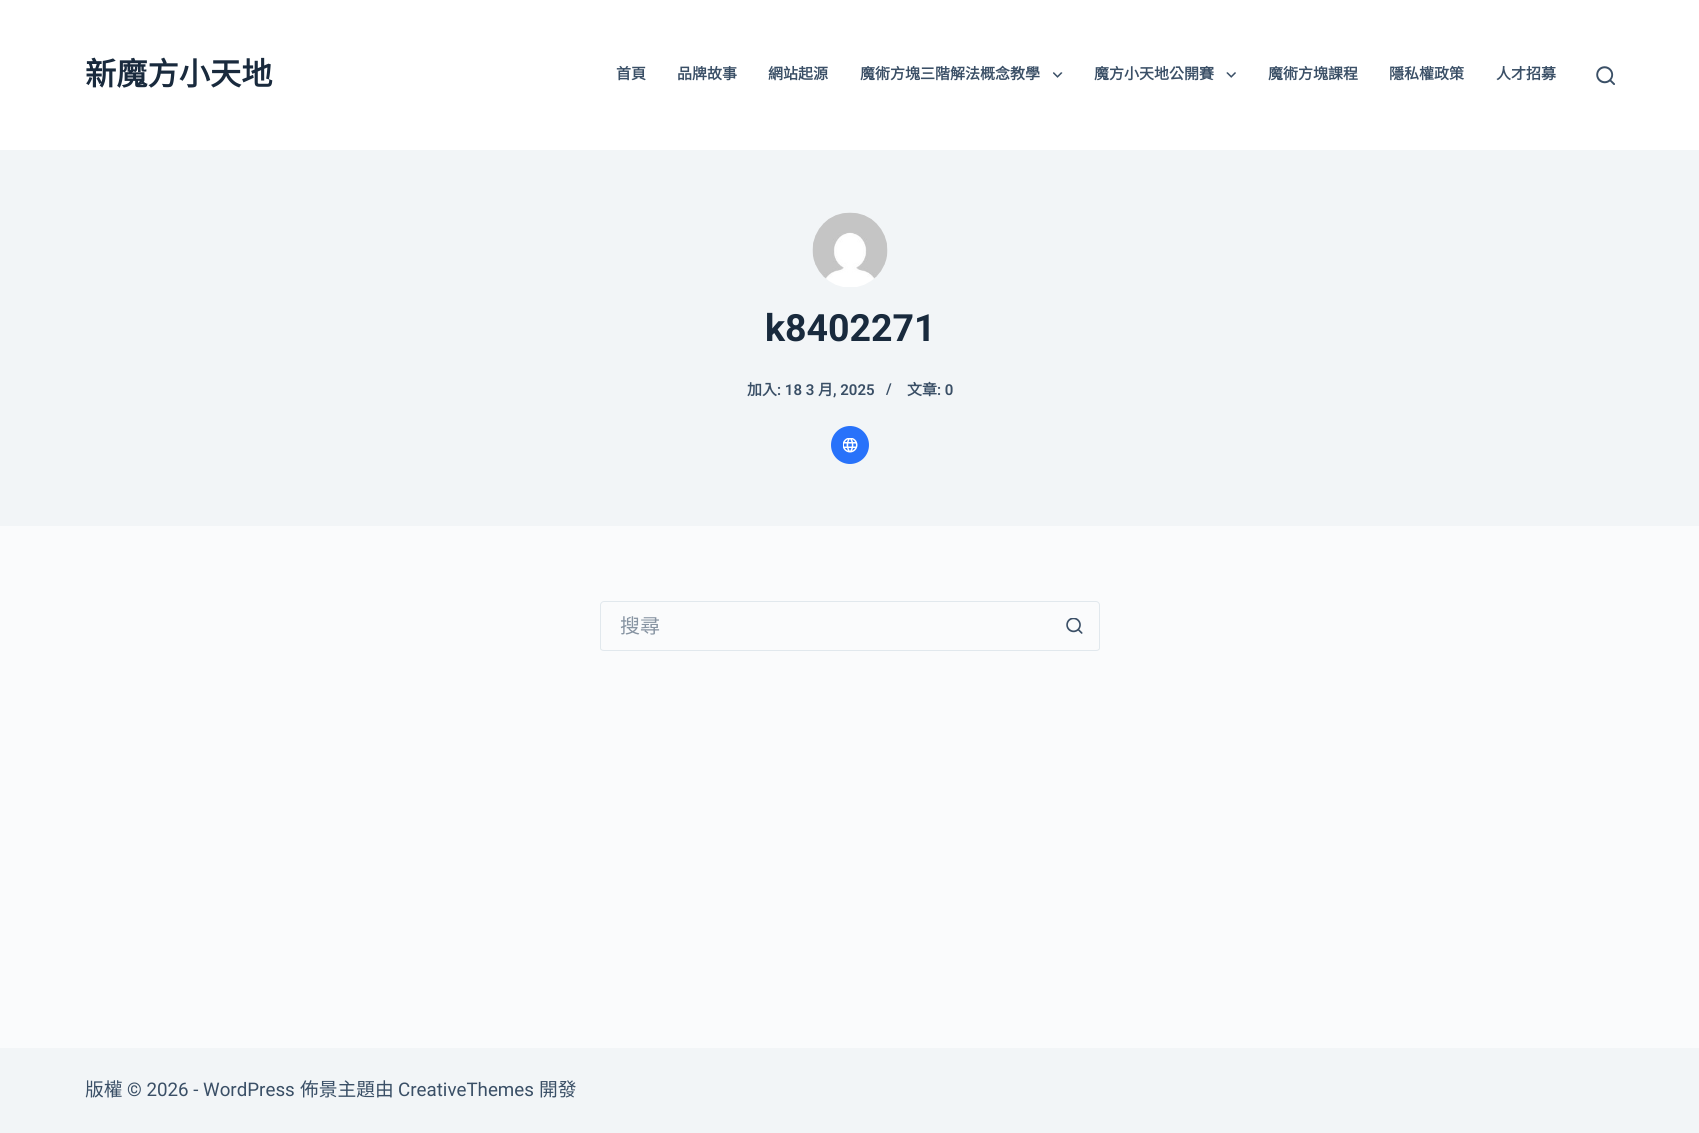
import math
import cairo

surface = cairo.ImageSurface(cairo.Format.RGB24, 1699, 1133)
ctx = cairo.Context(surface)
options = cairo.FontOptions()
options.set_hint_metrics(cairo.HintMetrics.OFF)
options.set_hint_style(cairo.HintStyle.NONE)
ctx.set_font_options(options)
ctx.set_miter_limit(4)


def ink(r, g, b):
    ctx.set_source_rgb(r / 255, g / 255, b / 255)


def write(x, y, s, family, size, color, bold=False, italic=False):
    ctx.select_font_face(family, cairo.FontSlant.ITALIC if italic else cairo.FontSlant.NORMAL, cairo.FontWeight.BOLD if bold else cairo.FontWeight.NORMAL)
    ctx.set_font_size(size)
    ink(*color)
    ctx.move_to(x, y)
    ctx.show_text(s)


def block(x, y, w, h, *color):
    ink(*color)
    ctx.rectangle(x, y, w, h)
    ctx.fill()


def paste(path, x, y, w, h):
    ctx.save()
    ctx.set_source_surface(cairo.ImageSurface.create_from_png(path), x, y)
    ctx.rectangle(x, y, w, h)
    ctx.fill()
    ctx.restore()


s1 = dict(family="Noto Sans CJK TC", size=31.25, color=(25, 42, 61), bold=True)
s2 = dict(family="Noto Sans CJK TC", size=15, color=(58, 79, 102), bold=True)
s3 = dict(family="Roboto", size=37.5, color=(25, 42, 61), bold=True)
s4 = dict(family="Roboto SemiBold", size=15, color=(58, 79, 102))
s5 = dict(family="Noto Sans CJK TC", size=20, color=(135, 148, 162))
s6 = dict(family="Noto Sans CJK TC", size=18.75, color=(58, 79, 102))
s7 = dict(family="Roboto", size=18.75, color=(58, 79, 102))

ink(250, 251, 252)
ctx.paint()
block(0, 0, 1699, 150, 255, 255, 255)
write(85, 85, "新魔方小天地", **s1)
write(616, 79, "首頁", **s2)
write(677, 79, "品牌故事", **s2)
write(768, 79, "網站起源", **s2)
write(860, 79, "魔術方塊三階解法概念教學", **s2)
paste("pic1.png", 1053, 72, 10, 6)
write(1094, 79, "魔方小天地公開賽", **s2)
paste("pic2.png", 1226, 72, 10, 6)
write(1268, 79, "魔術方塊課程", **s2)
write(1389, 79, "隱私權政策", **s2)
write(1496, 79, "人才招募", **s2)
paste("pic3.png", 1596, 66, 19, 19)
block(0, 150, 1699, 376, 242, 245, 247)
paste("pic4.png", 812, 212, 76, 75)
write(765, 341, "k8402271", **s3)
write(747, 395, "加入", **s2)
write(777, 395, ": 18 3", **s4)
write(818, 395, "月", **s2)
write(833, 395, ", 2025", **s4)
write(886, 394, "/", **s4)
write(907, 395, "文章", **s2)
write(937, 395, ": 0", **s4)
ink(40, 114, 250)
ctx.new_path()
ctx.arc(850, 445, 19, 0, 2 * math.pi)
ctx.fill()
paste("pic5.png", 843, 438, 15, 15)
ink(225, 232, 237)
ctx.set_fill_rule(cairo.FillRule.EVEN_ODD)
ctx.new_path()
ctx.move_to(604, 601)
ctx.line_to(1050, 601)
ctx.line_to(1050, 651)
ctx.line_to(604, 651)
ctx.curve_to(602, 651, 600, 650, 600, 648)
ctx.line_to(600, 605)
ctx.curve_to(600, 603, 602, 601, 604, 601)
ctx.close_path()
ctx.move_to(604, 602)
ctx.line_to(1050, 602)
ctx.line_to(1050, 650)
ctx.line_to(604, 650)
ctx.curve_to(602, 650, 601, 649, 601, 648)
ctx.line_to(601, 605)
ctx.curve_to(601, 604, 602, 602, 604, 602)
ctx.close_path()
ctx.fill()
write(620, 633, "搜尋", **s5)
ink(225, 232, 237)
ctx.new_path()
ctx.move_to(1050, 601)
ctx.line_to(1096, 601)
ctx.curve_to(1098, 601, 1100, 603, 1100, 605)
ctx.line_to(1100, 648)
ctx.curve_to(1100, 650, 1098, 651, 1096, 651)
ctx.line_to(1050, 651)
ctx.close_path()
ctx.move_to(1050, 602)
ctx.line_to(1096, 602)
ctx.curve_to(1098, 602, 1099, 604, 1099, 605)
ctx.line_to(1099, 648)
ctx.curve_to(1099, 649, 1098, 650, 1096, 650)
ctx.line_to(1050, 650)
ctx.close_path()
ctx.fill()
paste("pic6.png", 1066, 618, 17, 16)
block(0, 1048, 1699, 85, 242, 245, 247)
write(85, 1096, "版權", **s6)
write(127, 1096, "© 2026 - WordPress", **s7)
write(300, 1096, "佈景主題由", **s6)
write(398, 1096, "CreativeThemes", **s7)
write(539, 1096, "開發", **s6)
surface.write_to_png("screenshot.png")
